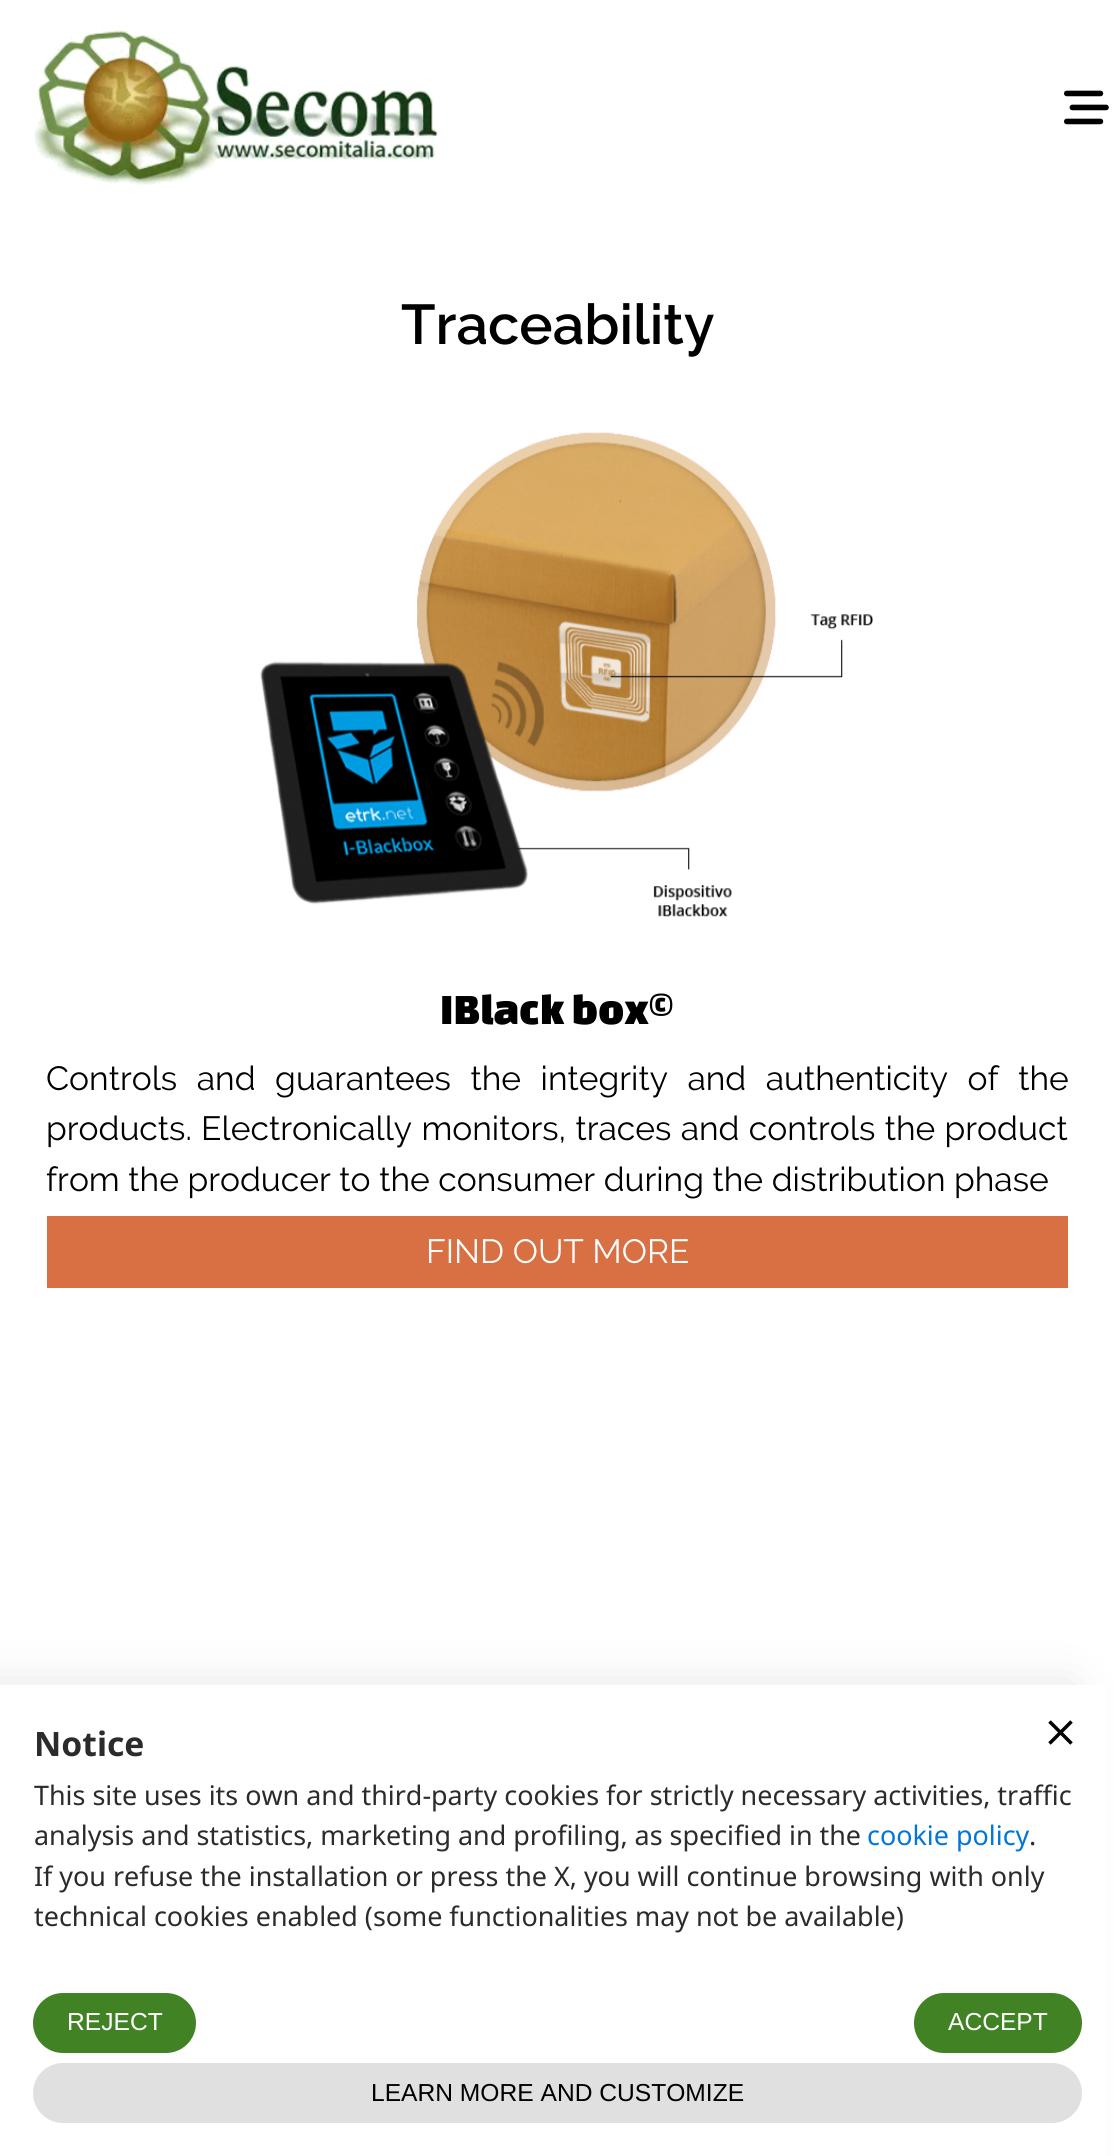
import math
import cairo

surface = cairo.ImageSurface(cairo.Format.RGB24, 1114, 2156)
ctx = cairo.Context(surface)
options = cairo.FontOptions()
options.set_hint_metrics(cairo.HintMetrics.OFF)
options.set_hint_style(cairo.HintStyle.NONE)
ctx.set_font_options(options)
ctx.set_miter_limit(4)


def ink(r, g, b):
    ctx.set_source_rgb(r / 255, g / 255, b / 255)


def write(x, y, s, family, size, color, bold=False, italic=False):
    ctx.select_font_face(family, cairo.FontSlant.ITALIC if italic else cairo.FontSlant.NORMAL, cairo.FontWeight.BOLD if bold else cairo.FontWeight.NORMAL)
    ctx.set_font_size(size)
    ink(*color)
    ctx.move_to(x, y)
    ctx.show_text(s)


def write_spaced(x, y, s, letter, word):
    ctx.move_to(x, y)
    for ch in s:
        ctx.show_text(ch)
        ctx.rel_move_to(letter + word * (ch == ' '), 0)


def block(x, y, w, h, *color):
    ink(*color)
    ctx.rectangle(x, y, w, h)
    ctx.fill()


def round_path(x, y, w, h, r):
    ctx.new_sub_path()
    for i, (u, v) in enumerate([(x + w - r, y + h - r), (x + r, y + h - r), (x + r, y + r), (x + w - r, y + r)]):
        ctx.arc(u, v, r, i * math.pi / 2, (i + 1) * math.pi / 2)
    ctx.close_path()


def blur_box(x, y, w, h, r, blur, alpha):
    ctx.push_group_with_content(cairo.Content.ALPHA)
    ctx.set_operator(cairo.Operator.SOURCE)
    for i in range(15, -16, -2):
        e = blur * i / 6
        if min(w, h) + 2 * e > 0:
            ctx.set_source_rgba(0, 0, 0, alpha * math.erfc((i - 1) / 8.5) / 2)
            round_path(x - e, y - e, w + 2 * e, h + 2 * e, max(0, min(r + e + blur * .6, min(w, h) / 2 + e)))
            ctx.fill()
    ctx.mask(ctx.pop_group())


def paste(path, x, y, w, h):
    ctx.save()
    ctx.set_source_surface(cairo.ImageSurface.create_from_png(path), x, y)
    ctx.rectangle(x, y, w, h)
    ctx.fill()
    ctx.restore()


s1 = dict(family="Raleway SemiBold", size=56, color=(0, 0, 0))
s2 = dict(family="Changa One", size=44.75, color=(0, 0, 0))
s3 = dict(family="Raleway", size=33.6, color=(0, 0, 0))
s4 = dict(family="Raleway", size=33.6, color=(255, 255, 255))
s5 = dict(family="Noto Sans", size=33.6, color=(41, 43, 44), bold=True)
s6 = dict(family="Noto Sans", size=26.9, color=(41, 43, 44))
s7 = dict(family="Noto Sans", size=26.9, color=(2, 117, 216))
s8 = dict(family="Liberation Sans", size=24.6, color=(255, 255, 255))
s9 = dict(family="Liberation Sans", size=24.6, color=(0, 0, 0))

ink(255, 255, 255)
ctx.paint()
paste("pic1.png", 34, 25, 404, 161)
paste("pic2.png", 1064, 90, 45, 35)
write(401, 344, "Traceability", **s1)
paste("pic3.png", 260, 432, 613, 485)
write(440, 1024, "IBlack box©", **s2)
ctx.select_font_face("Raleway")
ctx.set_font_size(33.6)
write_spaced(46, 1090, "Controls and guarantees the integrity and authenticity of the", 0, 11)
write_spaced(46, 1140, "products. Electronically monitors, traces and controls the product", 0, 0.75)
write(46, 1191, "from the producer to the consumer during the distribution phase", **s3)
block(47, 1216, 1021, 72, 216, 112, 67)
write(426, 1263, "FIND OUT MORE", **s4)
ink(0, 0, 0)
blur_box(-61, 1689, 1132, 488, 0, 26, 0.12)
block(0, 1685, 1107, 471, 255, 255, 255)
write(34, 1756, "Notice", **s5)
paste("pic4.png", 1048, 1720, 25, 25)
write(34, 1805, "This site uses its own and third-party cookies for strictly necessary activities, traffic", **s6)
write(34, 1845, "analysis and statistics, marketing and profiling, as specified in the", **s6)
write(867, 1845, "cookie policy", **s7)
write(1029, 1845, ".", **s6)
write(34, 1886, "If you refuse the installation or press the X, you will continue browsing with only", **s6)
write(34, 1926, "technical cookies enabled (some functionalities may not be available)", **s6)
ink(64, 130, 36)
round_path(33, 1993, 163, 60, 30)
ctx.fill()
write(67, 2030, "REJECT", **s8)
ink(64, 130, 36)
round_path(914, 1993, 168, 60, 30)
ctx.fill()
write(948, 2030, "ACCEPT", **s8)
ink(224, 224, 224)
round_path(33, 2063, 1049, 60, 30)
ctx.fill()
write(371, 2101, "LEARN MORE AND CUSTOMIZE", **s9)
surface.write_to_png("screenshot.png")
